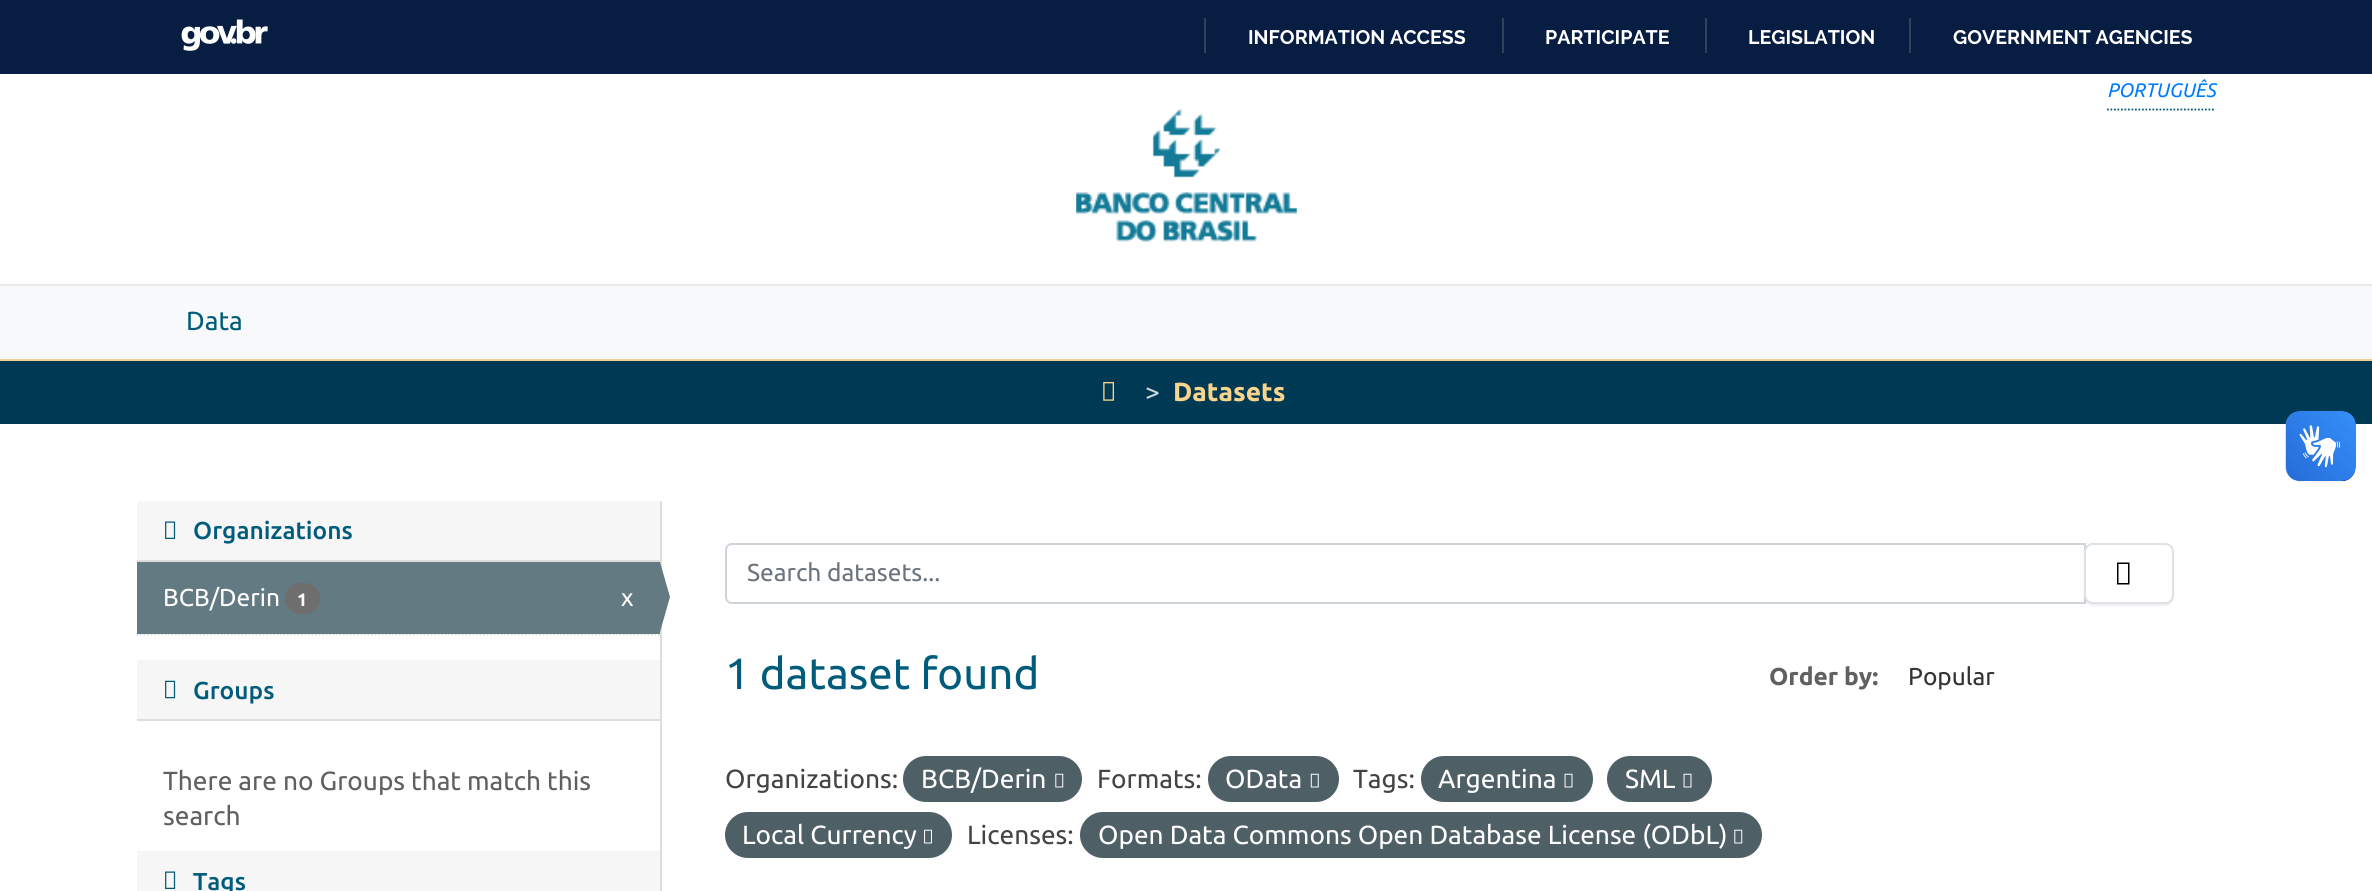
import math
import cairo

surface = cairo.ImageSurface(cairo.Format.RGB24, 2372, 891)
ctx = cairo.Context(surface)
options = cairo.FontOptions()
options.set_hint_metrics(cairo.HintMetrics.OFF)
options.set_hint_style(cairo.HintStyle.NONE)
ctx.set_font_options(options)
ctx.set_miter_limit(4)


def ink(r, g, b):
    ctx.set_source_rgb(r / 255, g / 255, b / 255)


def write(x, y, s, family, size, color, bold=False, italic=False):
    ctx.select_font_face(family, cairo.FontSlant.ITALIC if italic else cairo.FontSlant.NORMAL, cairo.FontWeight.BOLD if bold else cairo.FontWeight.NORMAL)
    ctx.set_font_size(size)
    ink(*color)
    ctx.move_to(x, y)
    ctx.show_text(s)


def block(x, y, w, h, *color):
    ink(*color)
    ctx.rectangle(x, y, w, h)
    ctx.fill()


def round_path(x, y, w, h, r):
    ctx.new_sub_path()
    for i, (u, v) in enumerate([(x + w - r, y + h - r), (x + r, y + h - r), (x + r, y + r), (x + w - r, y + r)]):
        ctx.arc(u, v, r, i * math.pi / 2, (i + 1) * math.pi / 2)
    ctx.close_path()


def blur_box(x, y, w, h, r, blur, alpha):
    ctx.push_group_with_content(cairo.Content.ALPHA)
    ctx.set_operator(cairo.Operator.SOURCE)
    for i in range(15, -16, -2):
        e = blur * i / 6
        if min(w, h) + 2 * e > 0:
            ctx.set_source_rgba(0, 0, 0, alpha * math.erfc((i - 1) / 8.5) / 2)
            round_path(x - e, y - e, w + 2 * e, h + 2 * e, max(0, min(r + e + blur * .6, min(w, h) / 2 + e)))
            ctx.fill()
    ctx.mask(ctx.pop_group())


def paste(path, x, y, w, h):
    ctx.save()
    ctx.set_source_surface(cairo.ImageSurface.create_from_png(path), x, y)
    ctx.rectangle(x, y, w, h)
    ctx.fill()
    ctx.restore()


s1 = dict(family="Raleway", size=19.6, color=(255, 255, 255), bold=True)
s2 = dict(family="Ubuntu", size=19.6, color=(0, 123, 255), italic=True)
s3 = dict(family="Ubuntu", size=26.25, color=(0, 92, 122))
s4 = dict(family="Ubuntu", size=26.25, color=(204, 215, 221))
s5 = dict(family="Ubuntu", size=26.25, color=(248, 212, 141), bold=True)
s6 = dict(family="Ubuntu Medium", size=24.5, color=(0, 92, 122))
s7 = dict(family="Ubuntu", size=24.5, color=(255, 255, 255))
s8 = dict(family="Ubuntu", size=18, color=(255, 255, 255), bold=True)
s9 = dict(family="Ubuntu", size=26.25, color=(96, 96, 96))
s10 = dict(family="Ubuntu", size=24.5, color=(108, 117, 125))
s11 = dict(family="Ubuntu", size=43.75, color=(0, 92, 122))
s12 = dict(family="Ubuntu", size=24.5, color=(96, 96, 96), bold=True)
s13 = dict(family="Ubuntu", size=24.5, color=(51, 51, 51))
s14 = dict(family="Ubuntu", size=26.25, color=(68, 68, 68))
s15 = dict(family="Ubuntu", size=26.25, color=(255, 255, 255))

ink(255, 255, 255)
ctx.paint()
block(0, 0, 2372, 74, 7, 29, 65)
paste("pic1.png", 181, 19, 87, 32)
block(1204, 18, 2, 35, 50, 66, 91)
write(1248, 44, "INFORMATION ACCESS", **s1)
block(1502, 18, 2, 35, 50, 66, 91)
write(1545, 44, "PARTICIPATE", **s1)
block(1705, 18, 2, 35, 50, 66, 91)
write(1748, 44, "LEGISLATION", **s1)
block(1909, 18, 2, 35, 50, 66, 91)
write(1953, 44, "GOVERNMENT AGENCIES", **s1)
ctx.new_path()
ctx.move_to(2107, 109.5)
ctx.line_to(2215.5, 109.5)
ink(2, 92, 117)
ctx.set_line_width(1.8)
ctx.set_dash([1.75, 1.75])
ctx.stroke()
write(2107, 97, "PORTUGUÊS", **s2)
paste("pic2.png", 1076, 108, 221, 134)
block(0, 286, 2372, 73, 248, 249, 250)
block(0, 284, 2372, 2, 234, 234, 234)
block(0, 359, 2372, 2, 237, 210, 151)
write(186, 330, "Data", **s3)
block(0, 361, 2372, 63, 0, 57, 84)
paste("pic3.png", 1103, 382, 11, 19)
write(1145, 401, ">", **s4)
write(1173, 401, "Datasets", **s5)
ink(246, 246, 246)
ctx.new_path()
ctx.move_to(142, 501)
ctx.line_to(660, 501)
ctx.line_to(660, 562)
ctx.line_to(137, 562)
ctx.line_to(137, 506)
ctx.curve_to(137, 503, 139, 501, 142, 501)
ctx.close_path()
ctx.fill()
block(137, 560, 523, 2, 221, 221, 221)
paste("pic4.png", 165, 521, 11, 18)
write(193, 539, "Organizations", **s6)
ctx.new_path()
ctx.move_to(136.5, 634.5)
ctx.line_to(660, 634.5)
ink(221, 221, 221)
ctx.stroke()
block(137, 562, 523, 72, 100, 122, 130)
write(163, 606, "BCB/Derin", **s7)
ink(110, 110, 110)
round_path(285, 583, 35, 31, 15.5)
ctx.fill()
write(297, 606, "1", **s8)
write(621, 606, "x", **s7)
block(660, 501, 2, 390, 221, 221, 221)
ink(100, 122, 130)
ctx.new_path()
ctx.move_to(660, 632)
ctx.line_to(660, 562)
ctx.line_to(670, 597)
ctx.close_path()
ctx.fill()
block(137, 660, 523, 59, 246, 246, 246)
block(137, 719, 523, 2, 221, 221, 221)
paste("pic5.png", 165, 680, 11, 19)
write(193, 699, "Groups", **s6)
write(163, 790, "There are no Groups that match this", **s9)
write(163, 825, "search", **s9)
block(137, 851, 523, 40, 246, 246, 246)
paste("pic4.png", 165, 871, 11, 18)
write(193, 890, "Tags", **s6)
ctx.new_path()
ctx.move_to(732, 544)
ctx.line_to(2085, 544)
ctx.line_to(2085, 603)
ctx.line_to(732, 603)
ctx.curve_to(728.5, 603, 726, 600.5, 726, 597)
ctx.line_to(726, 550)
ctx.curve_to(726, 546.5, 728.5, 544, 732, 544)
ctx.close_path()
ink(206, 212, 218)
ctx.set_line_width(2)
ctx.set_dash([])
ctx.stroke()
write(747, 581, "Search datasets...", **s10)
ink(0, 0, 0)
blur_box(2084, 544, 90, 62, 9, 1, 0.07)
ink(255, 255, 255)
round_path(2085, 544, 88, 59, 8)
ctx.fill_preserve()
ink(222, 226, 230)
ctx.stroke()
ink(0, 0, 0)
ctx.new_path()
ctx.move_to(2117, 584.5)
ctx.line_to(2117, 562.5)
ctx.line_to(2129.5, 562.5)
ctx.line_to(2129.5, 584.5)
ctx.close_path()
ctx.move_to(2118.5, 583)
ctx.line_to(2128, 583)
ctx.line_to(2128, 564)
ctx.line_to(2118.5, 564)
ctx.close_path()
ctx.fill()
write(725, 689, "1 dataset found", **s11)
write(1769, 685, "Order by:", **s12)
write(1908, 685, "Popular", **s13)
write(725, 788, "Organizations:", **s14)
ink(78, 95, 101)
round_path(903, 756, 179, 46, 23)
ctx.fill()
write(921, 788, "BCB/Derin", **s15)
paste("pic6.png", 1055, 773, 9, 15)
write(1097, 788, "Formats:", **s14)
ink(78, 95, 101)
round_path(1208, 756, 131, 46, 23)
ctx.fill()
write(1225, 788, "OData", **s15)
paste("pic7.png", 1310, 773, 9, 15)
write(1353, 788, "Tags:", **s14)
ink(78, 95, 101)
round_path(1421, 756, 172, 46, 23)
ctx.fill()
write(1438, 788, "Argentina", **s15)
paste("pic8.png", 1564, 773, 9, 15)
ink(78, 95, 101)
round_path(1607, 756, 105, 46, 23)
ctx.fill()
write(1625, 788, "SML", **s15)
paste("pic8.png", 1683, 773, 9, 15)
ink(78, 95, 101)
round_path(725, 812, 227, 46, 23)
ctx.fill()
write(742, 844, "Local Currency", **s15)
paste("pic9.png", 924, 829, 8, 15)
write(967, 844, "Licenses:", **s14)
ink(78, 95, 101)
round_path(1080, 812, 682, 46, 23)
ctx.fill()
write(1098, 844, "Open Data Commons Open Database License (ODbL)", **s15)
paste("pic6.png", 1734, 829, 9, 15)
paste("pic10.png", 2285, 411, 71, 71)
paste("pic11.png", 2286, 411, 70, 70)
surface.write_to_png("screenshot.png")
